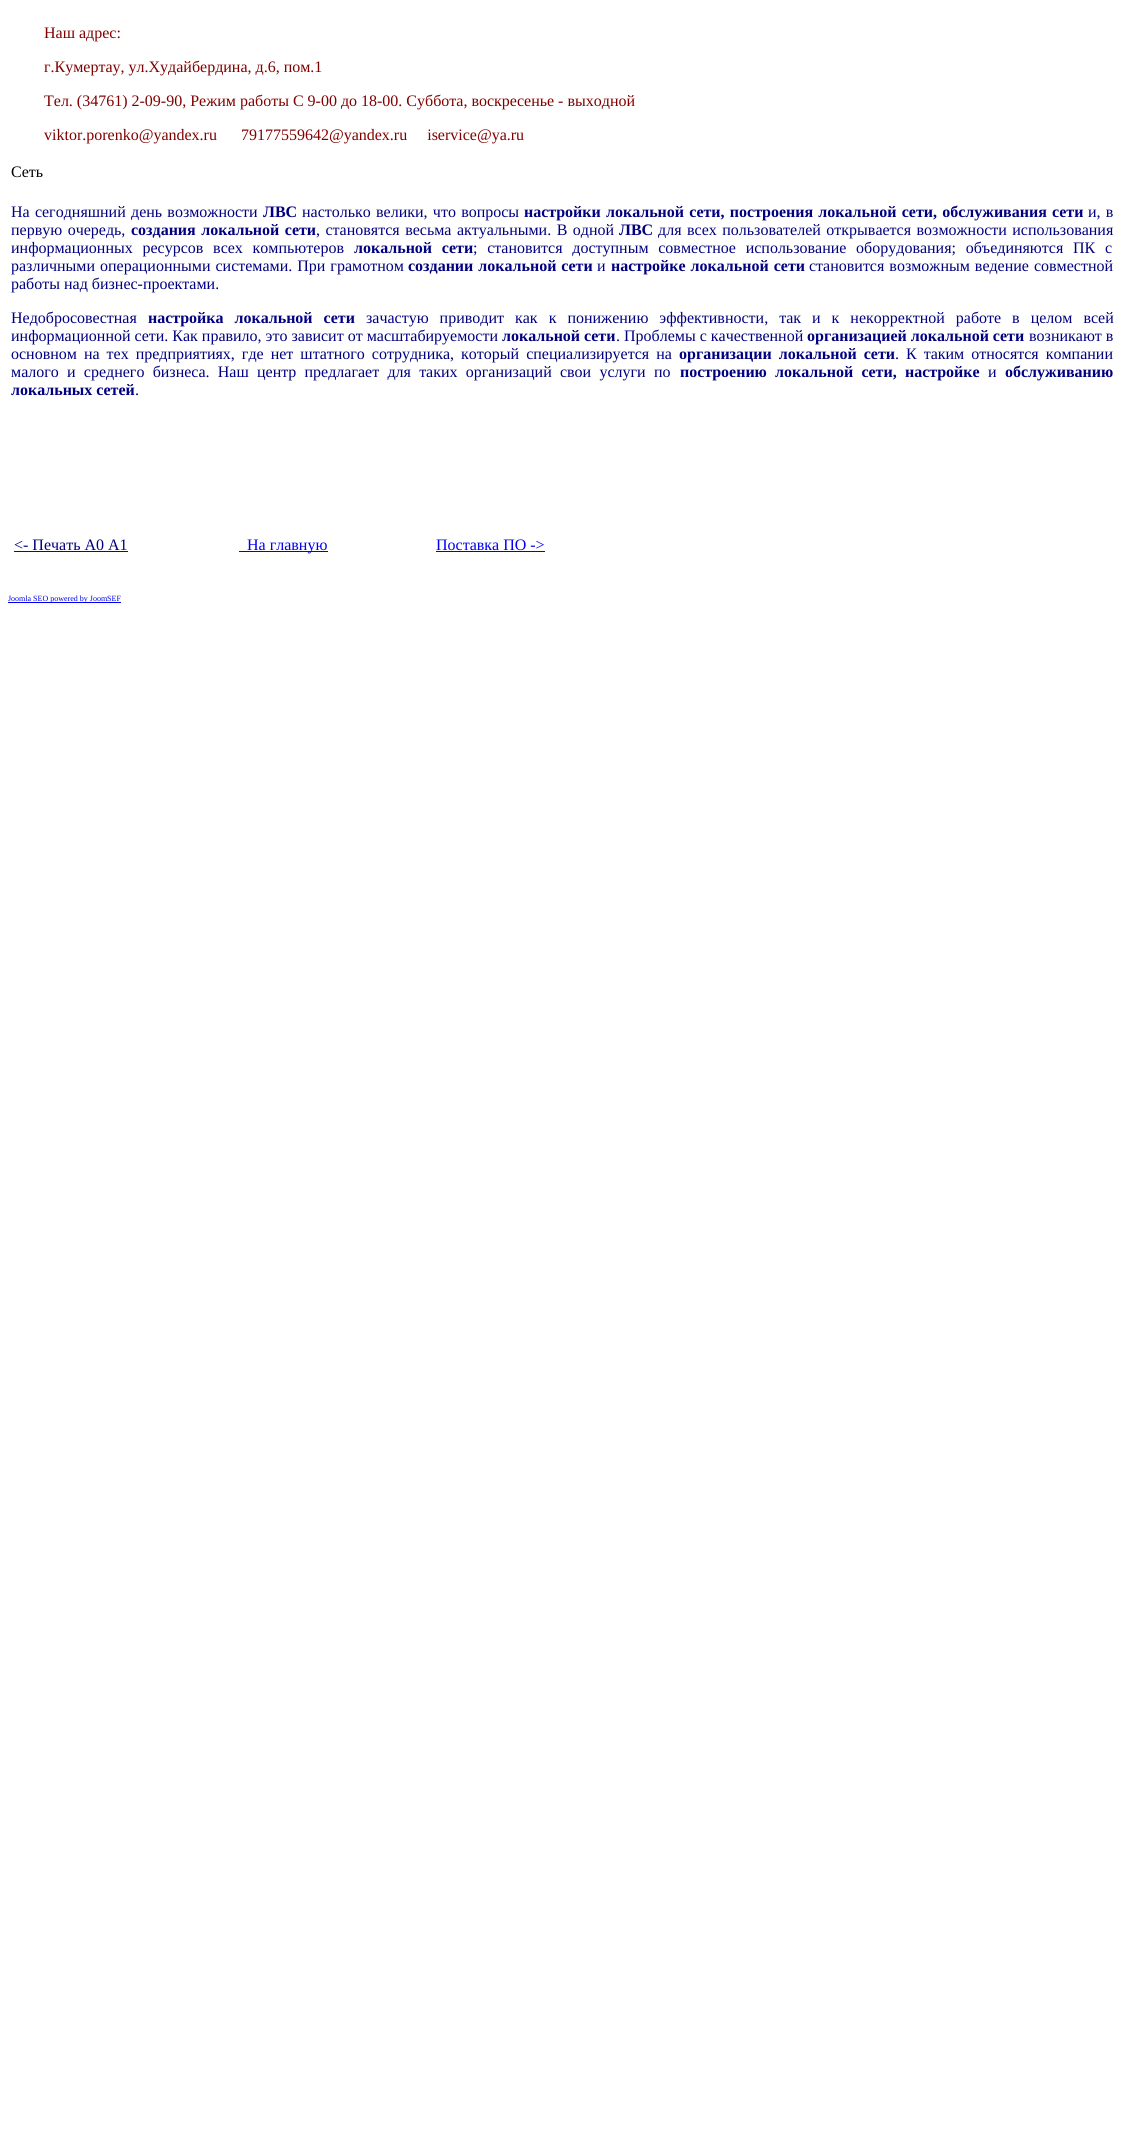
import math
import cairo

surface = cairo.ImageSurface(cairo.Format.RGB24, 1124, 2138)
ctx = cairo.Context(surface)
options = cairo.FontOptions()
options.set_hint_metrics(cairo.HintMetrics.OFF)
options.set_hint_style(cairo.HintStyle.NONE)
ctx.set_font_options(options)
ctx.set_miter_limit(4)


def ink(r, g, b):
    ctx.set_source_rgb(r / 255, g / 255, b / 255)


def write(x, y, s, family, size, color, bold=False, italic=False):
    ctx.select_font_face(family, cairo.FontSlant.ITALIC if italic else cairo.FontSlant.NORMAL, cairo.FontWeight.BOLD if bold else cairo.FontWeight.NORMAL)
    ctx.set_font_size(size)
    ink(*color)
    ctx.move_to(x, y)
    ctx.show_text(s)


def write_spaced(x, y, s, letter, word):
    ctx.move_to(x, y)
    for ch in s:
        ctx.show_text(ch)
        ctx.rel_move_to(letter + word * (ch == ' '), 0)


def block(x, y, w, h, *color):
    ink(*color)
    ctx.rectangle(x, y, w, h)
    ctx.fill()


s1 = dict(family="Liberation Serif", size=16, color=(128, 0, 0))
s2 = dict(family="Liberation Serif", size=16, color=(0, 0, 0))
s3 = dict(family="Liberation Serif", size=16, color=(0, 0, 128), bold=True)
s4 = dict(family="Liberation Serif", size=16, color=(0, 0, 128))
s5 = dict(family="Liberation Serif", size=16, color=(0, 0, 238))
s6 = dict(family="Liberation Serif", size=8, color=(0, 0, 238))

ink(255, 255, 255)
ctx.paint()
write(44, 38, "Наш адрес:", **s1)
write(44, 72, "г.Кумертау, ул.Худайбердина, д.6, пом.1", **s1)
write(44, 106, "Тел. (34761) 2-09-90, Режим работы С 9-00 до 18-00. Суббота, воскресенье - выходной", **s1)
write(44, 140, "viktor.porenko@yandex.ru      79177559642@yandex.ru     iservice@ya.ru", **s1)
write(11, 177, "Сеть", **s2)
ink(0, 0, 128)
write_spaced(11, 217, "На сегодняшний день возможности", 0, 1.25)
write(263, 217, "ЛВС", **s3)
ctx.select_font_face("Liberation Serif")
write_spaced(302, 217, "настолько велики, что вопросы", 0, 1.25)
ctx.select_font_face("Liberation Serif", cairo.FontSlant.NORMAL, cairo.FontWeight.BOLD)
write_spaced(524, 217, "настройки локальной сети, построения локальной сети, обслуживания сети", 0, 1.25)
ctx.select_font_face("Liberation Serif")
write_spaced(1088, 217, "и, в", 0, 1.25)
write_spaced(11, 235, "первую очередь,", 0, 1.5)
ctx.select_font_face("Liberation Serif", cairo.FontSlant.NORMAL, cairo.FontWeight.BOLD)
write_spaced(131, 235, "создания локальной сети", 0, 1.5)
ctx.select_font_face("Liberation Serif")
write_spaced(316, 235, ", становятся весьма актуальными. В одной", 0, 1.5)
write(619, 235, "ЛВС", **s3)
ctx.select_font_face("Liberation Serif")
write_spaced(658, 235, "для всех пользователей открывается возможности использования", 0, 1.5)
write_spaced(11, 253, "информационных ресурсов всех компьютеров", 0, 5.75)
ctx.select_font_face("Liberation Serif", cairo.FontSlant.NORMAL, cairo.FontWeight.BOLD)
write_spaced(354, 253, "локальной сети", 0, 5.75)
ctx.select_font_face("Liberation Serif")
write_spaced(473, 253, "; становится доступным совместное использование оборудования; объединяются ПК с", 0, 5.75)
write_spaced(11, 271, "различными операционными системами. При грамотном", 0, 1)
ctx.select_font_face("Liberation Serif", cairo.FontSlant.NORMAL, cairo.FontWeight.BOLD)
write_spaced(408, 271, "создании локальной сети", 0, 1)
write(597, 271, "и", **s4)
ctx.select_font_face("Liberation Serif", cairo.FontSlant.NORMAL, cairo.FontWeight.BOLD)
write_spaced(611, 271, "настройке локальной сети", 0, 1)
ctx.select_font_face("Liberation Serif")
write_spaced(809, 271, "становится возможным ведение совместной", 0, 1)
write(11, 289, "работы над бизнес-проектами.", **s4)
write(11, 323, "Недобросовестная", **s4)
ctx.select_font_face("Liberation Serif", cairo.FontSlant.NORMAL, cairo.FontWeight.BOLD)
write_spaced(148, 323, "настройка локальной сети", 0, 7)
ctx.select_font_face("Liberation Serif")
write_spaced(366, 323, "зачастую приводит как к понижению эффективности, так и к некорректной работе в целом всей", 0, 7)
write(11, 341, "информационной сети. Как правило, это зависит от масштабируемости", **s4)
write(502, 341, "локальной сети", **s3)
write(616, 341, ". Проблемы с качественной", **s4)
write(807, 341, "организацией локальной сети", **s3)
write(1029, 341, "возникают в", **s4)
write_spaced(11, 359, "основном на тех предприятиях, где нет штатного сотрудника, который специализируется на", 0, 3)
ctx.select_font_face("Liberation Serif", cairo.FontSlant.NORMAL, cairo.FontWeight.BOLD)
write_spaced(679, 359, "организации локальной сети", 0, 3)
ctx.select_font_face("Liberation Serif")
write_spaced(895, 359, ". К таким относятся компании", 0, 3)
write_spaced(11, 377, "малого и среднего бизнеса. Наш центр предлагает для таких организаций свои услуги по", 0, 4.25)
ctx.select_font_face("Liberation Serif", cairo.FontSlant.NORMAL, cairo.FontWeight.BOLD)
write_spaced(680, 377, "построению локальной сети, настройке", 0, 4.25)
write(988, 377, "и", **s4)
write(1005, 377, "обслуживанию", **s3)
write(11, 395, "локальных сетей", **s3)
write(135, 395, ".", **s4)
write(14, 550, "<- Печать А0 А1", **s4)
block(14, 551, 114, 1, 0, 0, 238)
block(239, 551, 89, 1, 0, 0, 238)
write(247, 550, "На главную", **s5)
write(436, 550, "Поставка ПО ->", **s5)
block(436, 551, 109, 1, 0, 0, 238)
block(8, 602, 113, 1, 0, 0, 238)
write(8, 601, "Joomla SEO powered by JoomSEF", **s6)
surface.write_to_png("screenshot.png")
